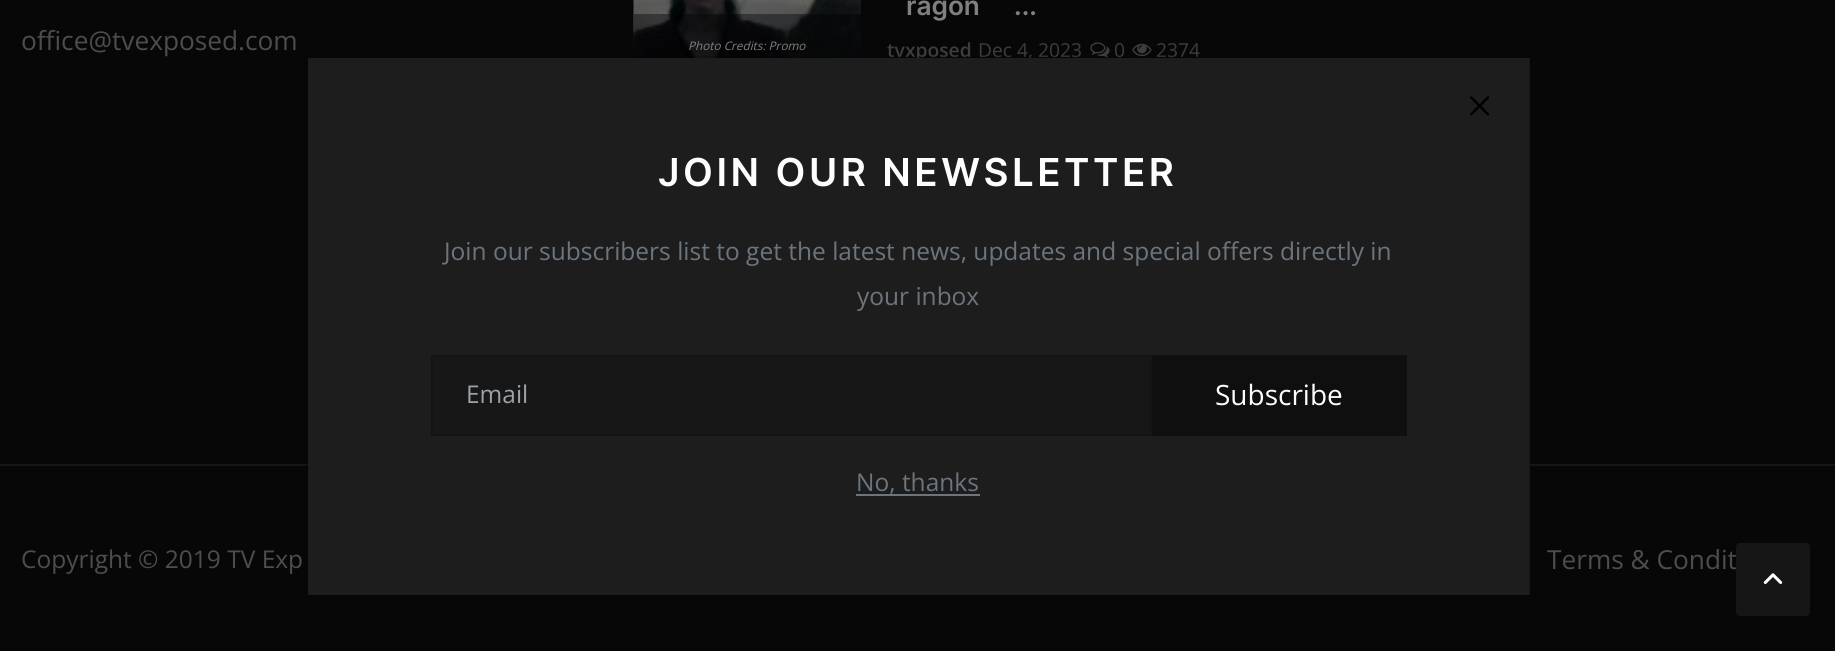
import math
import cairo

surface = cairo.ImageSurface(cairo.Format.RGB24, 1835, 651)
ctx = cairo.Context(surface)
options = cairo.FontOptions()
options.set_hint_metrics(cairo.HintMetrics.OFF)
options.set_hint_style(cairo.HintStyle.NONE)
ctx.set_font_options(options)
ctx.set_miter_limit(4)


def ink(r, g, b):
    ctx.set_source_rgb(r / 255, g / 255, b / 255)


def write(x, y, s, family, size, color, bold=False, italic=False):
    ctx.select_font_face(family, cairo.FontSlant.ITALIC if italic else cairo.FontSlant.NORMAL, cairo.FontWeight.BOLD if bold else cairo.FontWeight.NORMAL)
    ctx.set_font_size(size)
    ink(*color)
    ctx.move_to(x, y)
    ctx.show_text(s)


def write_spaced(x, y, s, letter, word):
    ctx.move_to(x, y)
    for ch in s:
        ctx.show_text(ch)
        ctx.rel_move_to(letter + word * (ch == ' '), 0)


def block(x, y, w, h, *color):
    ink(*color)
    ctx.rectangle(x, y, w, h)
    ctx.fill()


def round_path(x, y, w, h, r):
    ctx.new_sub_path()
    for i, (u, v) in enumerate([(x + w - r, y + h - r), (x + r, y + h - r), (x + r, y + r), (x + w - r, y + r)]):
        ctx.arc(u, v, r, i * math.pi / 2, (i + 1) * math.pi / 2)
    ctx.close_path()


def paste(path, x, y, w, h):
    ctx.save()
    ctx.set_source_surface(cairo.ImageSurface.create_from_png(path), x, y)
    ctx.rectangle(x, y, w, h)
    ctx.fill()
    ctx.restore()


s1 = dict(family="Open Sans", size=26.25, color=(77, 77, 77))
s2 = dict(family="Open Sans", size=11.75, color=(128, 128, 128), italic=True)
s3 = dict(family="Inter SemiBold", size=26.25, color=(128, 128, 128))
s4 = dict(family="Open Sans SemiBold", size=19.25, color=(61, 61, 61))
s5 = dict(family="Open Sans", size=19.25, color=(61, 61, 61))
s6 = dict(family="Open Sans", size=24.5, color=(77, 77, 77))
s7 = dict(family="Open Sans", size=24.5, color=(108, 117, 125))
s8 = dict(family="Open Sans", size=24.5, color=(154, 162, 170))
s9 = dict(family="Open Sans", size=28, color=(253, 253, 253))

ink(7, 7, 7)
ctx.paint()
write(21, 50, "office@tvexposed.com", **s1)
paste("pic1.png", 633, 0, 228, 58)
ctx.set_source_rgba(0, 0, 0, 0.4)
ctx.rectangle(634, 14, 227, 44)
ctx.fill()
write(688, 50, "Photo Credits: Promo", **s2)
write(906, 15, "ragon", **s3)
write(1014, 15, "...", **s3)
write(887, 57, "tvxposed", **s4)
write(978, 57, "Dec 4, 2023", **s5)
paste("pic2.png", 1090, 42, 20, 16)
write(1114, 57, "0", **s5)
paste("pic3.png", 1132, 43, 20, 14)
write(1156, 57, "2374", **s5)
block(0, 464, 1835, 2, 22, 22, 22)
write(21, 568, "Copyright © 2019 TV Exp", **s6)
write(1547, 569, "Terms & Condit", **s1)
block(308, 58, 1222, 537, 29, 29, 29)
ctx.rectangle(307, 57, 1223, 539)
ctx.set_source_rgba(0, 0, 0, 0.18)
ctx.stroke()
paste("pic4.png", 1470, 96, 19, 20)
ctx.select_font_face("Inter SemiBold")
ctx.set_font_size(38.5)
ink(253, 253, 253)
write_spaced(658, 186, "JOIN OUR NEWSLETTER", 3.5, 0)
write(444, 260, "Join our subscribers list to get the latest news, updates and special offers directly in", **s7)
write(857, 305, "your inbox", **s7)
ink(23, 23, 23)
ctx.rectangle(432, 356, 719, 79)
ctx.fill_preserve()
ink(20, 20, 20)
ctx.stroke()
write(466, 403, "Email", **s8)
block(1152, 355, 255, 81, 15, 15, 15)
write(1215, 405, "Subscribe", **s9)
block(856, 494, 124, 2, 108, 117, 125)
write(856, 491, "No, thanks", **s7)
ink(22, 22, 22)
round_path(1736, 543, 74, 73, 4)
ctx.fill()
paste("pic5.png", 1763, 573, 20, 11)
surface.write_to_png("screenshot.png")
